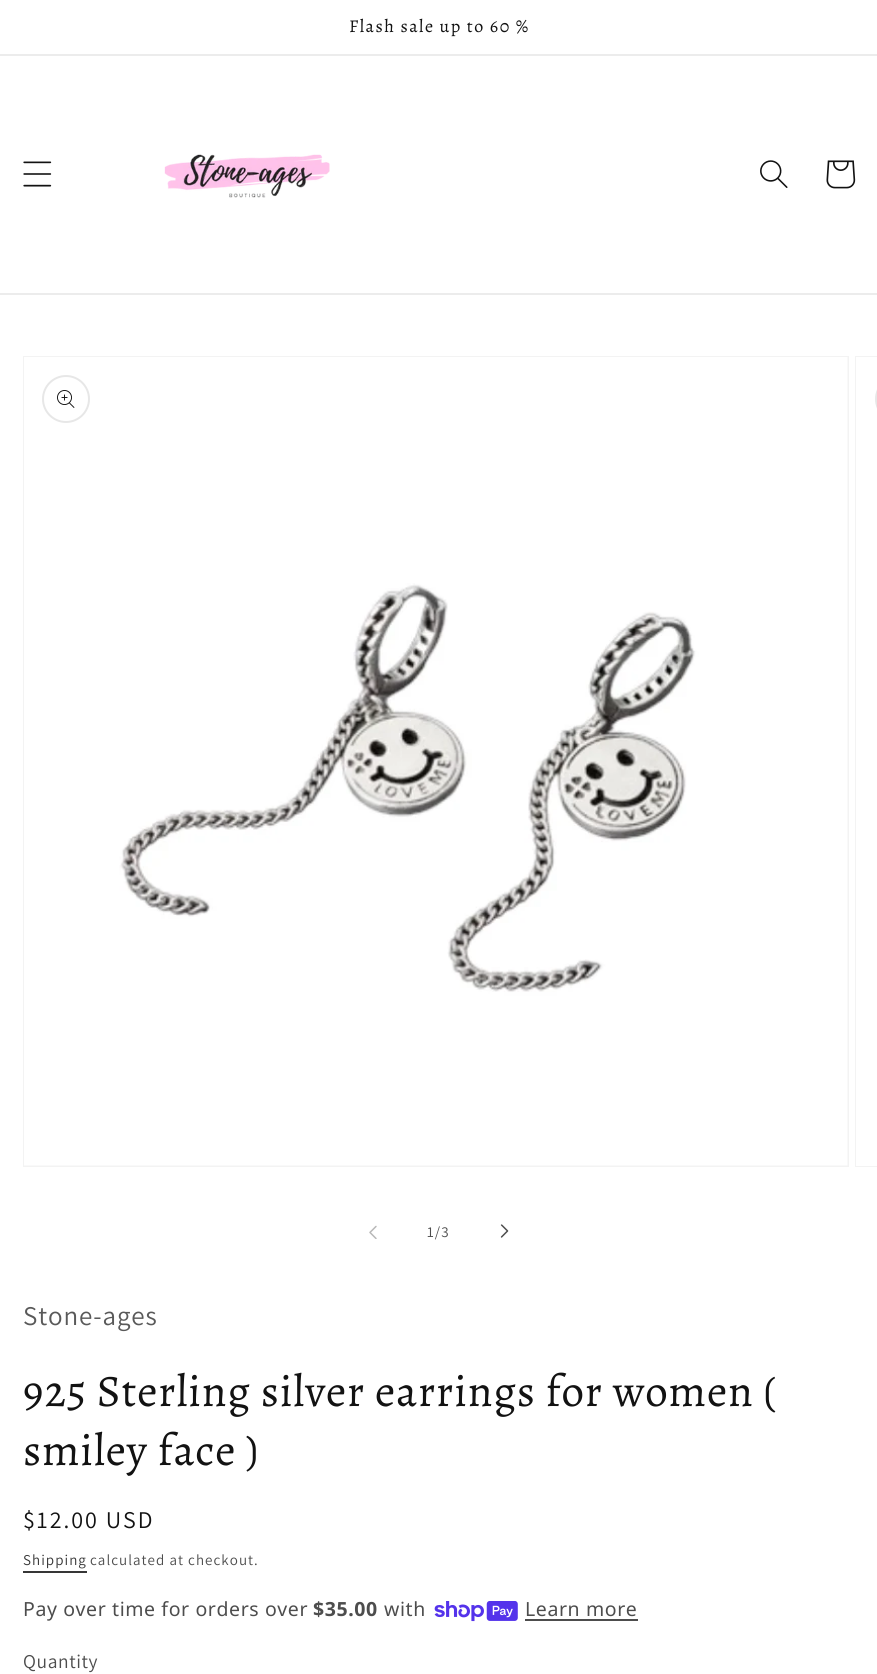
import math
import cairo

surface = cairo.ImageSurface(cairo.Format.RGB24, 877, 1674)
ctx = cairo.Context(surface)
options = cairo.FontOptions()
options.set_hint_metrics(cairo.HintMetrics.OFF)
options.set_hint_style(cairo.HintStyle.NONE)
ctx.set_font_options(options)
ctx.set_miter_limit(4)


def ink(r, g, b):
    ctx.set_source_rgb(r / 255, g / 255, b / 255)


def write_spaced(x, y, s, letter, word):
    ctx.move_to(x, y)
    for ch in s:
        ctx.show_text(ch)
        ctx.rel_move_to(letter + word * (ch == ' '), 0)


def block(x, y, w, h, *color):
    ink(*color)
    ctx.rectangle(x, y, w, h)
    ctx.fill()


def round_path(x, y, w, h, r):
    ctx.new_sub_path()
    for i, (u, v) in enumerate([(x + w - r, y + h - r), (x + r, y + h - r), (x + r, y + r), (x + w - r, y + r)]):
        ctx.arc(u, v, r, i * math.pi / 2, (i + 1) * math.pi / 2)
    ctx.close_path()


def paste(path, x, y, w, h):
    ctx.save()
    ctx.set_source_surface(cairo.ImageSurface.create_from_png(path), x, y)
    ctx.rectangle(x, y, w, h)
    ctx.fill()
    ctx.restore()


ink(255, 255, 255)
ctx.paint()
block(0, 54, 877, 2, 236, 236, 236)
ctx.select_font_face("Alegreya")
ctx.set_font_size(18)
ink(18, 18, 18)
write_spaced(349, 32, "Flash sale up to 60 %", 1.5, 0)
block(0, 293, 877, 2, 236, 236, 236)
paste("pic1.png", 23, 161, 29, 26)
paste("pic2.png", 164, 154, 166, 44)
paste("pic3.png", 760, 160, 28, 28)
paste("pic4.png", 826, 160, 30, 29)
ctx.rectangle(24, 357, 824, 809)
ink(243, 243, 243)
ctx.stroke()
paste("pic5.png", 24, 357, 824, 809)
ctx.arc(66, 399, 23, 0, 2 * math.pi)
ink(231, 231, 231)
ctx.stroke()
paste("pic6.png", 57, 390, 18, 18)
ctx.rectangle(856, 357, 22, 809)
ink(243, 243, 243)
ctx.stroke()
block(856, 357, 21, 809, 255, 255, 255)
round_path(876, 376, 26, 46, 23)
ink(231, 231, 231)
ctx.stroke()
paste("pic7.png", 369, 1225, 8, 14)
ctx.select_font_face("Assistant")
ctx.set_font_size(15)
ink(77, 77, 77)
write_spaced(427, 1237, "1/3", 1.05, 0)
paste("pic8.png", 500, 1224, 9, 14)
ctx.set_font_size(27)
ink(89, 89, 89)
write_spaced(23, 1325, "Stone-ages", 0.9, 0)
ctx.select_font_face("Alegreya")
ctx.set_font_size(45)
ink(18, 18, 18)
write_spaced(23, 1406, "925 Sterling silver earrings for women (", 0.9, 0)
write_spaced(23, 1465, "smiley face )", 0.9, 0)
ctx.select_font_face("Assistant")
ctx.set_font_size(24)
write_spaced(23, 1528, "$12.00 USD", 2, 0)
ctx.set_font_size(15)
ink(54, 54, 54)
write_spaced(23, 1565, "Shipping", 1.05, 0)
block(23, 1571, 64, 2, 54, 54, 54)
ink(77, 77, 77)
write_spaced(90, 1565, "calculated at checkout.", 1.05, 0)
ctx.select_font_face("Noto Sans")
ctx.set_font_size(19.5)
write_spaced(23, 1616, "Pay over time for orders over", 0.6, 0)
ctx.select_font_face("Noto Sans", cairo.FontSlant.NORMAL, cairo.FontWeight.BOLD)
write_spaced(313, 1616, "$35.00", 0.6, 0)
ctx.select_font_face("Noto Sans")
write_spaced(384, 1616, "with", 0.6, 0)
paste("pic9.png", 434, 1601, 84, 21)
write_spaced(525, 1616, "Learn more", 0.6, 0)
block(525, 1619, 113, 2, 77, 77, 77)
ctx.select_font_face("Assistant")
write_spaced(23, 1668, "Quantity", 0.6, 0)
surface.write_to_png("screenshot.png")
